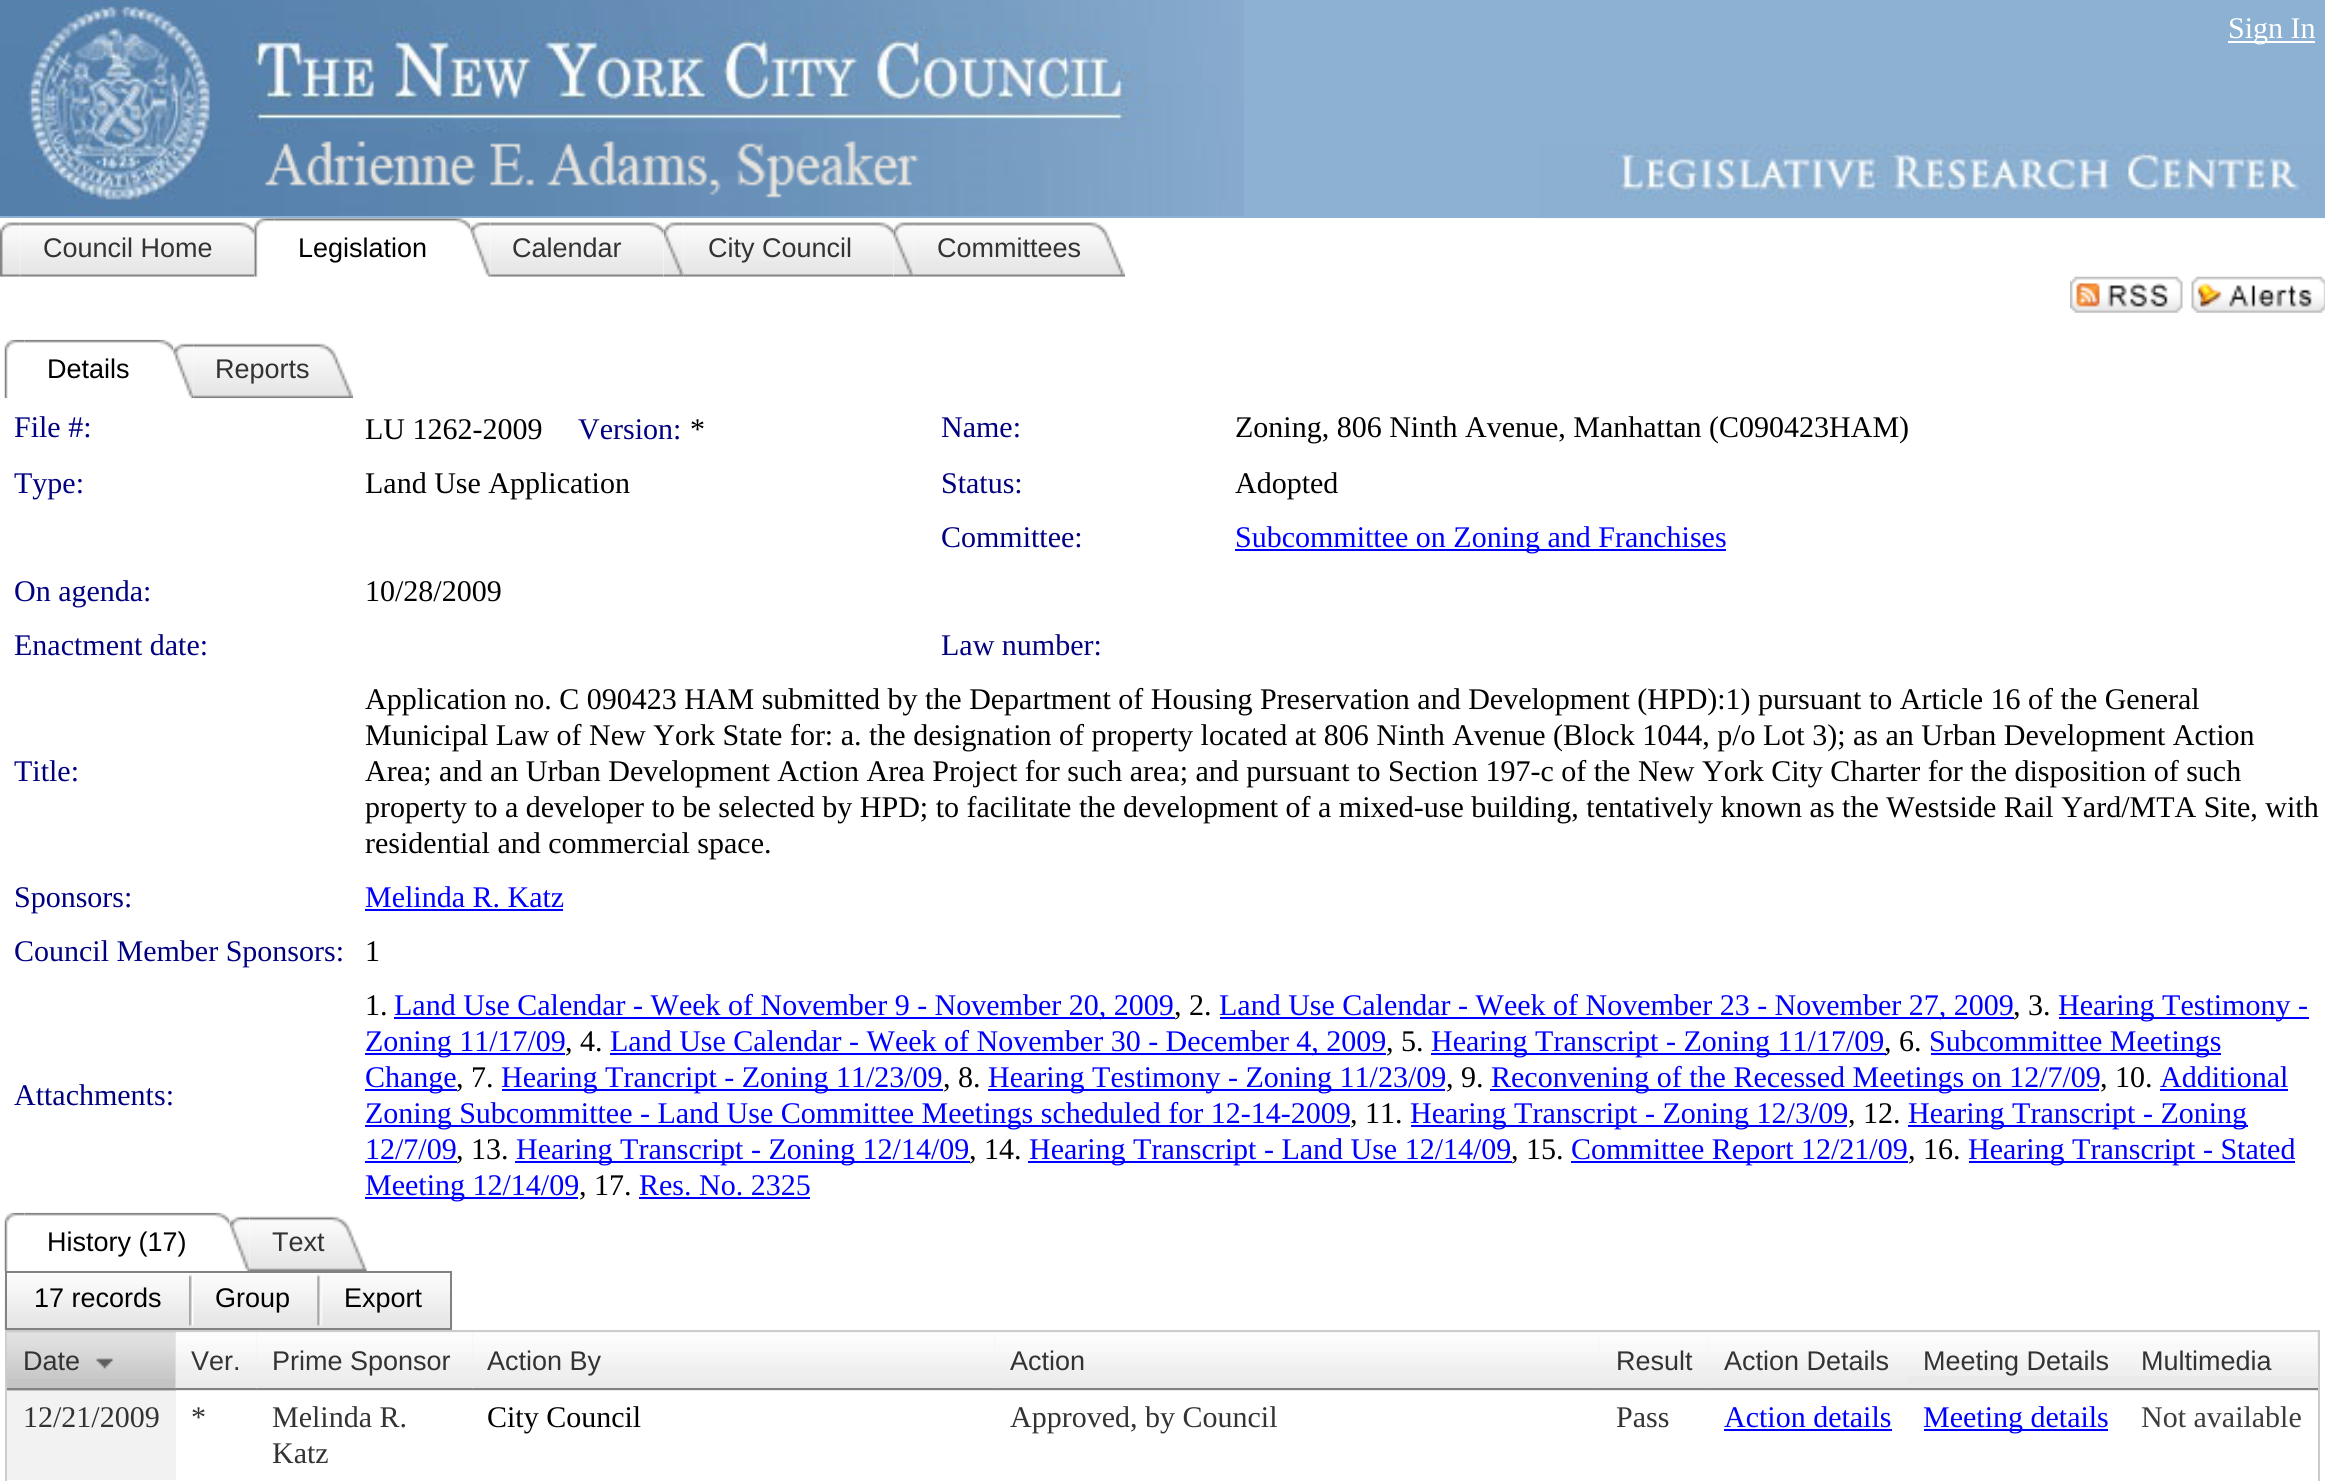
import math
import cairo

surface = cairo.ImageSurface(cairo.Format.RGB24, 2325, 1481)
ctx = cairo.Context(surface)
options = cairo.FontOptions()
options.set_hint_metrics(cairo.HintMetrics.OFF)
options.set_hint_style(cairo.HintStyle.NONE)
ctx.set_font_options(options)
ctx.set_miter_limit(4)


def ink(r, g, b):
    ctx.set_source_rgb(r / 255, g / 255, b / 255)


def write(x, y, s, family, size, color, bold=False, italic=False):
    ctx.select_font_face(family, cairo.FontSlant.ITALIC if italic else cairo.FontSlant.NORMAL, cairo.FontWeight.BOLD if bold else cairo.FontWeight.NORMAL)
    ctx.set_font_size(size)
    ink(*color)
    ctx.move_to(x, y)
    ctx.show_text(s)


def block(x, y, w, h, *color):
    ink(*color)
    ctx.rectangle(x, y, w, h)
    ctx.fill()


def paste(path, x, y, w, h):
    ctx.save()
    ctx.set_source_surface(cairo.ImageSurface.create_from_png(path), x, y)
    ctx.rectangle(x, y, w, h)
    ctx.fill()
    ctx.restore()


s1 = dict(family="Liberation Serif", size=30, color=(255, 255, 255))
s2 = dict(family="Liberation Sans", size=27, color=(51, 51, 51))
s3 = dict(family="Liberation Sans", size=27, color=(0, 0, 0))
s4 = dict(family="Liberation Serif", size=30, color=(0, 0, 128))
s5 = dict(family="Liberation Serif", size=30, color=(0, 0, 0))
s6 = dict(family="Liberation Serif", size=30, color=(0, 0, 255))
s7 = dict(family="Liberation Serif", size=30, color=(51, 51, 51))
s8 = dict(family="Liberation Serif", size=30, color=(61, 61, 61))

ink(255, 255, 255)
ctx.paint()
block(0, 0, 2325, 218, 140, 177, 210)
paste("pic1.png", 0, 0, 1244, 216)
paste("pic2.png", 1539, 144, 786, 75)
block(2228, 41, 87, 2, 255, 255, 255)
write(2228, 38, "Sign In", **s1)
paste("pic3.png", 0, 222, 21, 55)
paste("pic4.png", 20, 222, 235, 55)
write(43, 257, "Council Home", **s2)
paste("pic5.png", 254, 218, 22, 59)
paste("pic6.png", 274, 218, 197, 12)
write(298, 257, "Legislation", **s3)
paste("pic7.png", 470, 222, 21, 55)
paste("pic8.png", 490, 222, 174, 55)
write(512, 257, "Calendar", **s2)
paste("pic9.png", 663, 222, 22, 55)
paste("pic10.png", 684, 222, 210, 55)
write(708, 257, "City Council", **s2)
paste("pic11.png", 893, 222, 22, 55)
paste("pic12.png", 913, 222, 212, 55)
write(937, 257, "Committees", **s2)
paste("pic13.png", 2070, 276, 113, 37)
paste("pic14.png", 2191, 276, 134, 37)
paste("pic15.png", 4, 339, 22, 60)
paste("pic16.png", 24, 339, 150, 13)
write(47, 378, "Details", **s3)
paste("pic17.png", 173, 343, 22, 56)
paste("pic18.png", 193, 343, 161, 56)
write(215, 378, "Reports", **s2)
write(14, 437, "File #:", **s4)
write(365, 439, "LU 1262-2009", **s5)
write(578, 439, "Version:", **s4)
write(690, 439, "*", **s5)
write(941, 437, "Name:", **s4)
write(1235, 437, "Zoning, 806 Ninth Avenue, Manhattan (C090423HAM)", **s5)
write(14, 493, "Type:", **s4)
write(365, 493, "Land Use Application", **s5)
write(941, 493, "Status:", **s4)
write(1235, 493, "Adopted", **s5)
write(941, 547, "Committee:", **s4)
block(1235, 549, 491, 2, 0, 0, 255)
write(1235, 547, "Subcommittee on Zoning and Franchises", **s6)
write(14, 601, "On agenda:", **s4)
write(365, 601, "10/28/2009", **s5)
write(14, 655, "Enactment date:", **s4)
write(941, 655, "Law number:", **s4)
write(14, 781, "Title:", **s4)
write(365, 709, "Application no. C 090423 HAM submitted by the Department of Housing Preservation and Development (HPD):1) pursuant to Article 16 of the General", **s5)
write(365, 745, "Municipal Law of New York State for: a. the designation of property located at 806 Ninth Avenue (Block 1044, p/o Lot 3); as an Urban Development Action", **s5)
write(365, 781, "Area; and an Urban Development Action Area Project for such area; and pursuant to Section 197-c of the New York City Charter for the disposition of such", **s5)
write(365, 817, "property to a developer to be selected by HPD; to facilitate the development of a mixed-use building, tentatively known as the Westside Rail Yard/MTA Site, with", **s5)
write(365, 853, "residential and commercial space.", **s5)
write(14, 907, "Sponsors:", **s4)
write(365, 907, "Melinda R. Katz", **s6)
block(365, 909, 198, 2, 0, 0, 255)
write(14, 961, "Council Member Sponsors:", **s4)
write(365, 961, "1", **s5)
write(14, 1105, "Attachments:", **s4)
write(365, 1015, "1.", **s5)
block(394, 1017, 781, 2, 0, 0, 255)
write(394, 1015, "Land Use Calendar - Week of November 9 - November 20, 2009", **s6)
write(1174, 1015, ", 2.", **s5)
block(1220, 1017, 794, 2, 0, 0, 255)
write(1219, 1015, "Land Use Calendar - Week of November 23 - November 27, 2009", **s6)
write(2013, 1015, ", 3.", **s5)
block(2059, 1017, 250, 2, 0, 0, 255)
write(2058, 1015, "Hearing Testimony -", **s6)
block(365, 1053, 200, 2, 0, 0, 255)
write(365, 1051, "Zoning 11/17/09", **s6)
write(565, 1051, ", 4.", **s5)
block(610, 1053, 776, 2, 0, 0, 255)
write(610, 1051, "Land Use Calendar - Week of November 30 - December 4, 2009", **s6)
write(1386, 1051, ", 5.", **s5)
block(1431, 1053, 455, 2, 0, 0, 255)
write(1431, 1051, "Hearing Transcript - Zoning 11/17/09", **s6)
write(1884, 1051, ", 6.", **s5)
block(1931, 1053, 290, 2, 0, 0, 255)
write(1929, 1051, "Subcommittee Meetings", **s6)
block(365, 1089, 92, 2, 0, 0, 255)
write(365, 1087, "Change", **s6)
write(456, 1087, ", 7.", **s5)
block(502, 1089, 441, 2, 0, 0, 255)
write(501, 1087, "Hearing Trancript - Zoning 11/23/09", **s6)
write(943, 1087, ", 8.", **s5)
block(988, 1089, 457, 2, 0, 0, 255)
write(988, 1087, "Hearing Testimony - Zoning 11/23/09", **s6)
write(1446, 1087, ", 9.", **s5)
block(1490, 1089, 609, 2, 0, 0, 255)
write(1491, 1087, "Reconvening of the Recessed Meetings on 12/7/09", **s6)
write(2100, 1087, ", 10.", **s5)
write(2160, 1087, "Additional", **s6)
block(2160, 1089, 128, 2, 0, 0, 255)
block(365, 1125, 985, 2, 0, 0, 255)
write(365, 1123, "Zoning Subcommittee - Land Use Committee Meetings scheduled for 12-14-2009", **s6)
write(1350, 1123, ", 11.", **s5)
block(1411, 1125, 436, 2, 0, 0, 255)
write(1410, 1123, "Hearing Transcript - Zoning 12/3/09", **s6)
write(1848, 1123, ", 12.", **s5)
block(1908, 1125, 340, 2, 0, 0, 255)
write(1908, 1123, "Hearing Transcript - Zoning", **s6)
write(365, 1159, "12/7/09", **s6)
write(456, 1159, ", 13.", **s5)
block(365, 1161, 92, 2, 0, 0, 255)
block(515, 1161, 455, 2, 0, 0, 255)
write(516, 1159, "Hearing Transcript - Zoning 12/14/09", **s6)
write(969, 1159, ", 14.", **s5)
block(1028, 1161, 484, 2, 0, 0, 255)
write(1029, 1159, "Hearing Transcript - Land Use 12/14/09", **s6)
write(1511, 1159, ", 15.", **s5)
block(1571, 1161, 337, 2, 0, 0, 255)
write(1571, 1159, "Committee Report 12/21/09", **s6)
write(1908, 1159, ", 16.", **s5)
block(1969, 1161, 326, 2, 0, 0, 255)
write(1968, 1159, "Hearing Transcript - Stated", **s6)
block(365, 1197, 213, 2, 0, 0, 255)
write(365, 1195, "Meeting 12/14/09", **s6)
write(579, 1195, ", 17.", **s5)
write(639, 1195, "Res. No. 2325", **s6)
block(639, 1197, 171, 2, 0, 0, 255)
paste("pic19.png", 4, 1212, 22, 59)
paste("pic20.png", 24, 1212, 206, 13)
write(47, 1251, "History (17)", **s3)
paste("pic21.png", 229, 1216, 22, 55)
paste("pic22.png", 249, 1216, 118, 55)
write(272, 1251, "Text", **s2)
paste("pic23.png", 4, 1271, 449, 59)
ctx.rectangle(6, 1272, 445, 57)
ink(130, 130, 130)
ctx.stroke()
write(34, 1307, "17 records", **s3)
paste("pic24.png", 189, 1275, 5, 51)
write(215, 1307, "Group", **s3)
paste("pic25.png", 317, 1275, 6, 51)
write(344, 1307, "Export", **s3)
ctx.rectangle(6, 1331, 2313, 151)
ink(204, 204, 204)
ctx.stroke()
block(7, 1332, 169, 59, 196, 196, 196)
paste("pic26.png", 6, 1332, 170, 47)
block(7, 1388, 169, 2, 130, 130, 130)
write(23, 1370, "Date", **s2)
paste("pic27.png", 96, 1358, 18, 11)
block(176, 1332, 2142, 59, 234, 234, 234)
paste("pic28.png", 175, 1332, 82, 57)
block(176, 1388, 81, 2, 130, 130, 130)
write(191, 1370, "Ver.", **s2)
paste("pic29.png", 256, 1332, 217, 57)
block(257, 1388, 216, 2, 130, 130, 130)
write(272, 1370, "Prime Sponsor", **s2)
paste("pic30.png", 472, 1332, 523, 57)
block(473, 1388, 522, 2, 130, 130, 130)
write(487, 1370, "Action By", **s2)
paste("pic31.png", 994, 1332, 606, 57)
block(995, 1388, 605, 2, 130, 130, 130)
write(1010, 1370, "Action", **s2)
paste("pic32.png", 1599, 1332, 109, 57)
block(1600, 1388, 108, 2, 130, 130, 130)
write(1616, 1370, "Result", **s2)
paste("pic33.png", 1707, 1332, 201, 57)
block(1708, 1388, 610, 2, 130, 130, 130)
write(1724, 1370, "Action Details", **s2)
paste("pic34.png", 1908, 1332, 216, 44)
write(1923, 1370, "Meeting Details", **s2)
paste("pic35.png", 2124, 1332, 194, 44)
write(2141, 1370, "Multimedia", **s2)
block(7, 1391, 169, 89, 242, 242, 242)
write(23, 1427, "12/21/2009", **s7)
write(191, 1427, "*", **s7)
write(272, 1427, "Melinda R.", **s7)
write(272, 1463, "Katz", **s7)
write(487, 1427, "City Council", **s5)
write(1010, 1427, "Approved, by Council", **s7)
write(1616, 1427, "Pass", **s7)
write(1724, 1427, "Action details", **s6)
block(1724, 1429, 168, 2, 0, 0, 255)
block(1924, 1429, 184, 2, 0, 0, 255)
write(1923, 1427, "Meeting details", **s6)
write(2141, 1427, "Not available", **s8)
surface.write_to_png("screenshot.png")
